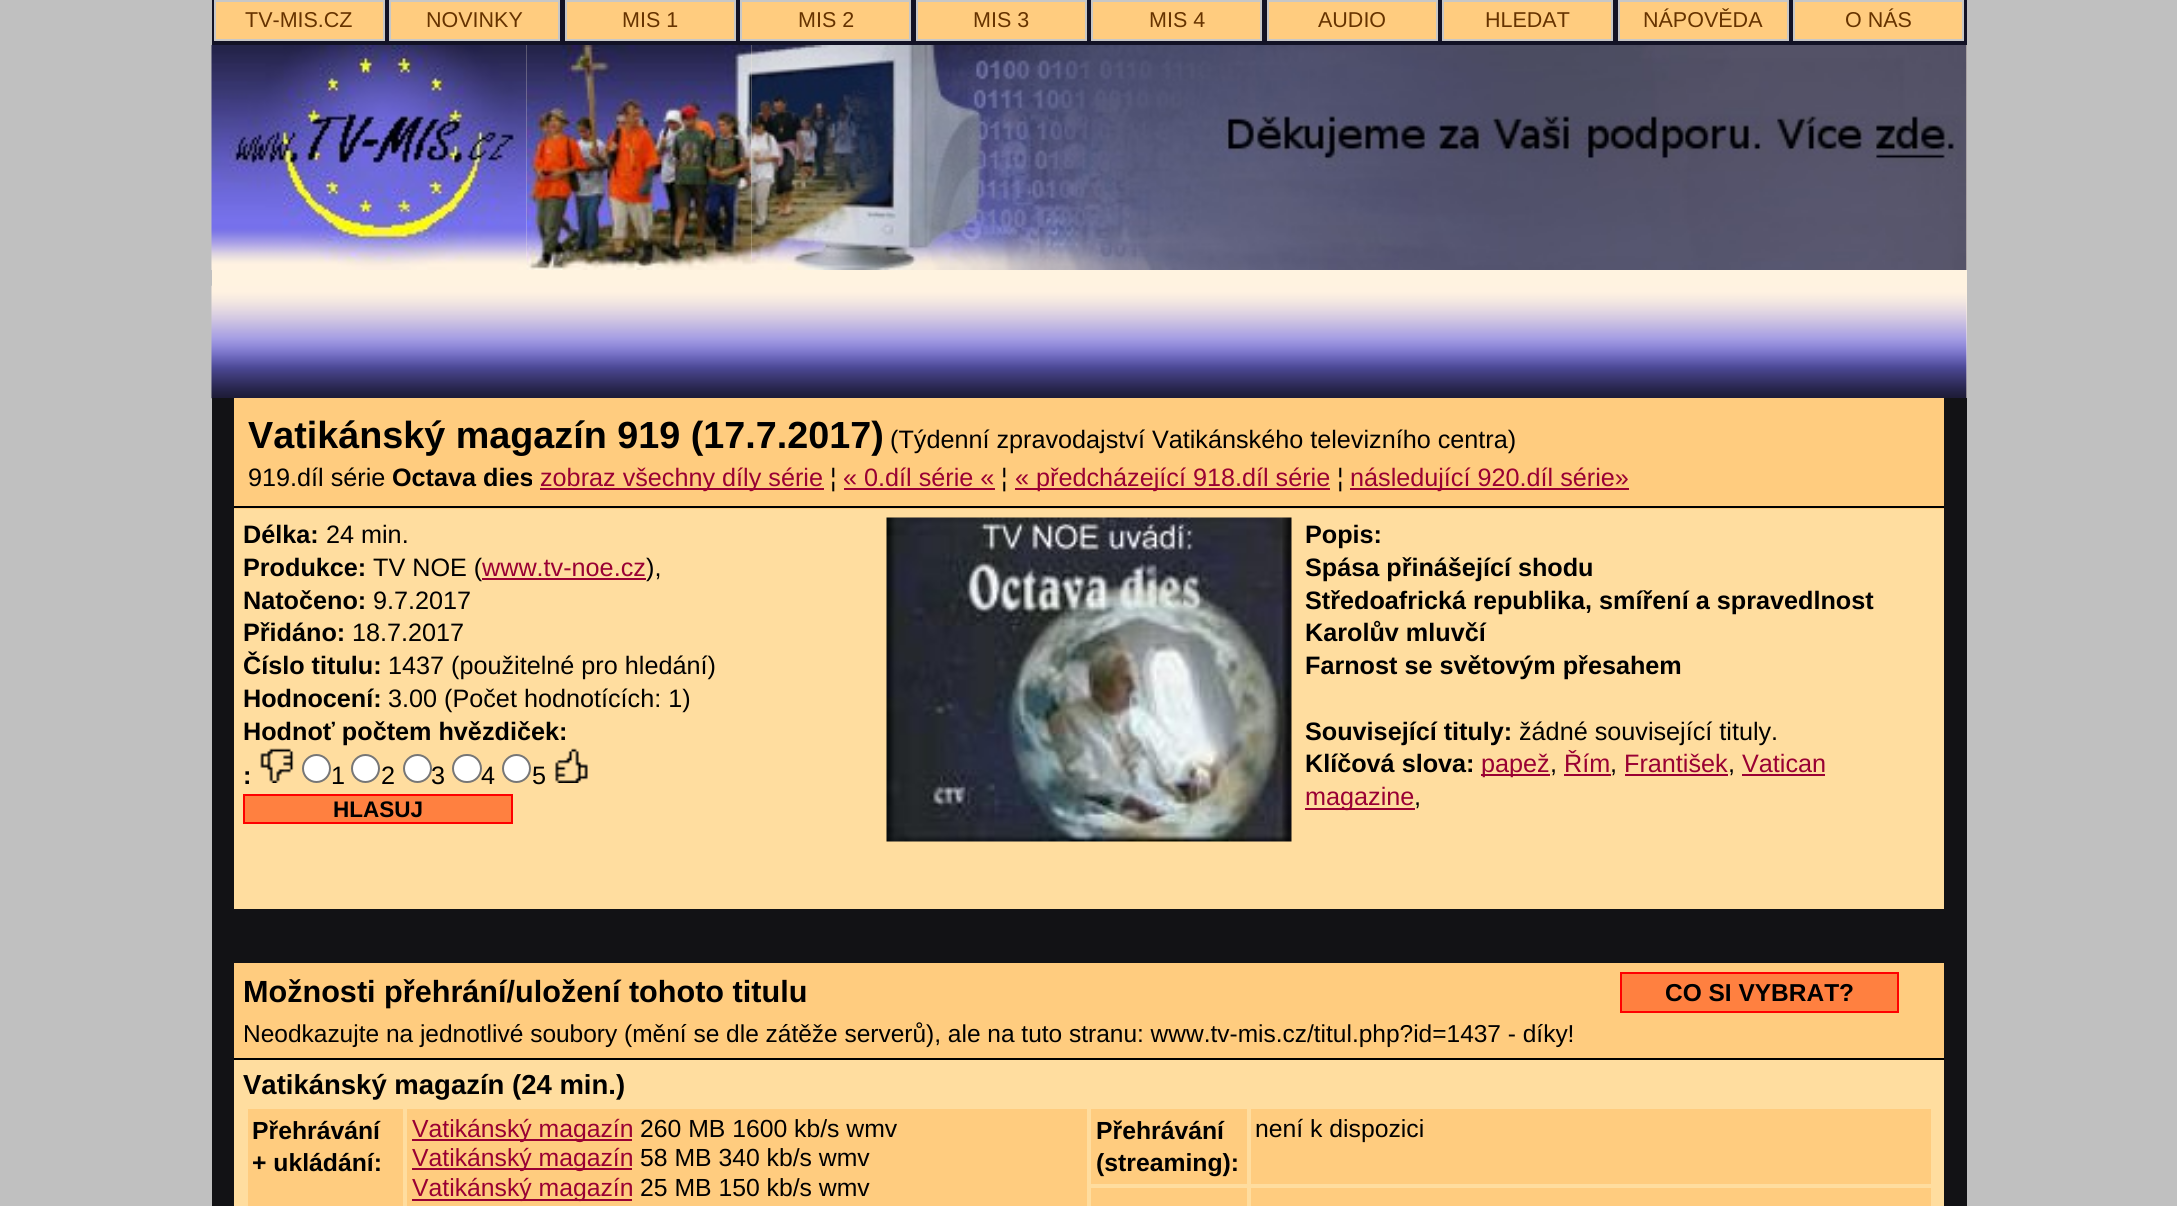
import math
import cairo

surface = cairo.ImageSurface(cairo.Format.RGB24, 2177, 1206)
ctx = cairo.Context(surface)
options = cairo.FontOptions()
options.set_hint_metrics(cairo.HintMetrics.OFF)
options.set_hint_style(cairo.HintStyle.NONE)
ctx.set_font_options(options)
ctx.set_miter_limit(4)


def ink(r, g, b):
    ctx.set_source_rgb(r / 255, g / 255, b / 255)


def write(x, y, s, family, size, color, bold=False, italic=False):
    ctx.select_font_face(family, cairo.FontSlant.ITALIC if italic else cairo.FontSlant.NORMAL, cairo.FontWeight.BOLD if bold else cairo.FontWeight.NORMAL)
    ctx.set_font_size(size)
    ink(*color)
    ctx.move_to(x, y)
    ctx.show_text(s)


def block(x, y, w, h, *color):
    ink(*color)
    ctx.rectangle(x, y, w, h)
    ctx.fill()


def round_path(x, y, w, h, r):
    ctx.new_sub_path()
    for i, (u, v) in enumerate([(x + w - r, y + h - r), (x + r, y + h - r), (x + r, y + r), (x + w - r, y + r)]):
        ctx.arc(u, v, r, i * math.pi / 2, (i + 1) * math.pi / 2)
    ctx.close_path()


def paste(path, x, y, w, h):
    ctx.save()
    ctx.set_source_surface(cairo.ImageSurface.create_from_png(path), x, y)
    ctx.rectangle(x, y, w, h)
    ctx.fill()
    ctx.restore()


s1 = dict(family="Liberation Sans", size=21.5, color=(102, 51, 0))
s2 = dict(family="Liberation Sans", size=37.75, color=(0, 0, 0), bold=True)
s3 = dict(family="Liberation Sans", size=25.2, color=(0, 0, 0))
s4 = dict(family="Liberation Sans", size=25.2, color=(0, 0, 0), bold=True)
s5 = dict(family="Liberation Sans", size=25.2, color=(153, 0, 51))
s6 = dict(family="Liberation Sans", size=22.5, color=(0, 0, 0), bold=True)
s7 = dict(family="Liberation Sans", size=30.6, color=(0, 0, 0), bold=True)
s8 = dict(family="Liberation Sans", size=24.48, color=(0, 0, 0), bold=True)
s9 = dict(family="Liberation Sans", size=24.48, color=(0, 0, 0))
s10 = dict(family="Liberation Sans", size=27.5, color=(0, 0, 0), bold=True)
s11 = dict(family="Liberation Sans", size=24.75, color=(0, 0, 0), bold=True)
s12 = dict(family="Liberation Sans", size=24.75, color=(153, 0, 51))
s13 = dict(family="Liberation Sans", size=24.75, color=(0, 0, 0))

ink(192, 192, 192)
ctx.paint()
block(212, 45, 1755, 353, 255, 243, 224)
block(212, 0, 1755, 45, 18, 18, 37)
ink(255, 204, 127)
ctx.rectangle(215, 1, 169, 39)
ctx.fill_preserve()
ink(199, 199, 199)
ctx.stroke()
write(245, 27, "TV-MIS.CZ", **s1)
ink(255, 204, 127)
ctx.rectangle(390, 1, 169, 39)
ctx.fill_preserve()
ink(199, 199, 199)
ctx.stroke()
write(426, 27, "NOVINKY", **s1)
ink(255, 204, 127)
ctx.rectangle(566, 1, 169, 39)
ctx.fill_preserve()
ink(199, 199, 199)
ctx.stroke()
write(622, 27, "MIS 1", **s1)
ink(255, 204, 127)
ctx.rectangle(741, 1, 169, 39)
ctx.fill_preserve()
ink(199, 199, 199)
ctx.stroke()
write(798, 27, "MIS 2", **s1)
ink(255, 204, 127)
ctx.rectangle(917, 1, 169, 39)
ctx.fill_preserve()
ink(199, 199, 199)
ctx.stroke()
write(973, 27, "MIS 3", **s1)
ink(255, 204, 127)
ctx.rectangle(1092, 1, 169, 39)
ctx.fill_preserve()
ink(199, 199, 199)
ctx.stroke()
write(1149, 27, "MIS 4", **s1)
ink(255, 204, 127)
ctx.rectangle(1268, 1, 169, 39)
ctx.fill_preserve()
ink(199, 199, 199)
ctx.stroke()
write(1318, 27, "AUDIO", **s1)
ink(255, 204, 127)
ctx.rectangle(1443, 1, 169, 39)
ctx.fill_preserve()
ink(199, 199, 199)
ctx.stroke()
write(1485, 27, "HLEDAT", **s1)
ink(255, 204, 127)
ctx.rectangle(1619, 1, 169, 39)
ctx.fill_preserve()
ink(199, 199, 199)
ctx.stroke()
write(1643, 27, "NÁPOVĚDA", **s1)
ink(255, 204, 127)
ctx.rectangle(1794, 1, 169, 39)
ctx.fill_preserve()
ink(199, 199, 199)
ctx.stroke()
write(1845, 27, "O NÁS", **s1)
paste("pic1.png", 211, 45, 316, 225)
paste("pic2.png", 526, 45, 226, 225)
paste("pic3.png", 751, 45, 1216, 225)
paste("pic4.png", 211, 285, 1756, 114)
block(212, 398, 1755, 808, 18, 18, 21)
block(234, 509, 1710, 400, 255, 221, 159)
block(234, 398, 1710, 111, 255, 204, 127)
block(234, 506, 1710, 2, 0, 0, 0)
write(248, 448, "Vatikánský magazín 919 (17.7.2017)", **s2)
write(890, 448, "(Týdenní zpravodajství Vatikánského televizního centra)", **s3)
write(248, 486, "919.díl série", **s3)
write(392, 486, "Octava dies", **s4)
block(540, 488, 284, 2, 153, 0, 51)
write(540, 486, "zobraz všechny díly série", **s5)
write(830, 486, "¦", **s3)
write(843, 486, "« 0.díl série «", **s5)
block(844, 488, 151, 2, 153, 0, 51)
write(1001, 486, "¦", **s3)
block(1015, 488, 315, 2, 153, 0, 51)
write(1015, 486, "« předcházející 918.díl série", **s5)
write(1337, 486, "¦", **s3)
block(1350, 488, 279, 2, 153, 0, 51)
write(1350, 486, "následující 920.díl série»", **s5)
write(243, 543, "Délka:", **s4)
write(326, 543, "24 min.", **s3)
write(243, 576, "Produkce:", **s4)
write(373, 576, "TV NOE (", **s3)
write(482, 576, "www.tv-noe.cz", **s5)
block(482, 578, 164, 2, 153, 0, 51)
write(646, 576, "),", **s3)
write(243, 609, "Natočeno:", **s4)
write(373, 609, "9.7.2017", **s3)
write(243, 641, "Přidáno:", **s4)
write(352, 641, "18.7.2017", **s3)
write(243, 674, "Číslo titulu:", **s4)
write(388, 674, "1437 (použitelné pro hledání)", **s3)
write(243, 707, "Hodnocení:", **s4)
write(388, 707, "3.00 (Počet hodnotících: 1)", **s3)
write(243, 740, "Hodnoť počtem hvězdiček:", **s4)
write(243, 784, ":", **s4)
paste("pic5.png", 260, 748, 34, 35)
ink(255, 255, 255)
ctx.arc(316.5, 768.5, 13.5, 0, 2 * math.pi)
ctx.fill_preserve()
ink(118, 118, 118)
ctx.stroke()
write(331, 784, "1", **s3)
ink(255, 255, 255)
ctx.new_path()
ctx.arc(365.5, 768.5, 13.5, 0, 2 * math.pi)
ctx.fill_preserve()
ink(118, 118, 118)
ctx.stroke()
write(381, 784, "2", **s3)
ink(255, 255, 255)
ctx.new_path()
ctx.arc(417.5, 768.5, 13.5, 0, 2 * math.pi)
ctx.fill_preserve()
ink(118, 118, 118)
ctx.stroke()
write(431, 784, "3", **s3)
ink(255, 255, 255)
round_path(453, 755, 28, 27, 13.5)
ctx.fill_preserve()
ink(118, 118, 118)
ctx.stroke()
write(481, 784, "4", **s3)
ink(255, 255, 255)
ctx.new_path()
ctx.arc(516.5, 768.5, 13.5, 0, 2 * math.pi)
ctx.fill_preserve()
ink(118, 118, 118)
ctx.stroke()
write(532, 784, "5", **s3)
paste("pic6.png", 555, 748, 33, 35)
ink(255, 128, 64)
ctx.rectangle(244, 795, 268, 28)
ctx.fill_preserve()
ink(255, 0, 0)
ctx.stroke()
write(333, 817, "HLASUJ", **s6)
paste("pic7.png", 886, 517, 406, 325)
write(1305, 543, "Popis:", **s4)
write(1305, 576, "Spása přinášející shodu", **s4)
write(1305, 609, "Středoafrická republika, smíření a spravedlnost", **s4)
write(1305, 641, "Karolův mluvčí", **s4)
write(1305, 674, "Farnost se světovým přesahem", **s4)
write(1305, 740, "Související tituly:", **s4)
write(1519, 740, "žádné související tituly.", **s3)
write(1305, 772, "Klíčová slova:", **s4)
block(1481, 774, 69, 2, 153, 0, 51)
write(1481, 772, "papež", **s5)
write(1550, 772, ",", **s3)
write(1564, 772, "Řím", **s5)
block(1564, 774, 47, 2, 153, 0, 51)
write(1610, 772, ",", **s3)
write(1624, 772, "František", **s5)
block(1625, 774, 103, 2, 153, 0, 51)
write(1728, 772, ",", **s3)
write(1742, 772, "Vatican", **s5)
block(1742, 774, 83, 2, 153, 0, 51)
block(1305, 808, 110, 2, 153, 0, 51)
write(1305, 805, "magazine", **s5)
write(1414, 805, ",", **s3)
block(234, 1060, 1710, 146, 255, 221, 159)
block(234, 963, 1710, 95, 255, 204, 127)
write(243, 1002, "Možnosti přehrání/uložení tohoto titulu", **s7)
ink(255, 128, 64)
ctx.rectangle(1621, 973, 277, 39)
ctx.fill_preserve()
ink(255, 0, 0)
ctx.stroke()
write(1665, 1001, "CO SI VYBRAT?", **s8)
write(243, 1042, "Neodkazujte na jednotlivé soubory (mění se dle zátěže serverů), ale na tuto stranu: www.tv-mis.cz/titul.php?id=1437 - díky!", **s9)
block(234, 1058, 1710, 2, 0, 0, 0)
write(243, 1094, "Vatikánský magazín (24 min.)", **s10)
block(248, 1109, 155, 97, 255, 204, 127)
write(252, 1139, "Přehrávání", **s11)
write(252, 1171, "+ ukládání:", **s11)
block(407, 1109, 680, 97, 255, 204, 127)
block(412, 1139, 220, 2, 153, 0, 51)
write(412, 1137, "Vatikánský magazín", **s12)
write(640, 1137, "260 MB 1600 kb/s wmv", **s13)
block(412, 1168, 220, 2, 153, 0, 51)
write(412, 1166, "Vatikánský magazín", **s12)
write(640, 1166, "58 MB 340 kb/s wmv", **s13)
block(412, 1199, 220, 2, 153, 0, 51)
write(412, 1196, "Vatikánský magazín", **s12)
write(640, 1196, "25 MB 150 kb/s wmv", **s13)
block(1091, 1109, 156, 75, 255, 204, 127)
write(1096, 1139, "Přehrávání", **s11)
write(1096, 1171, "(streaming):", **s11)
block(1251, 1109, 680, 75, 255, 204, 127)
write(1255, 1137, "není k dispozici", **s13)
block(1091, 1188, 156, 18, 255, 204, 127)
block(1251, 1188, 680, 18, 255, 204, 127)
surface.write_to_png("screenshot.png")
